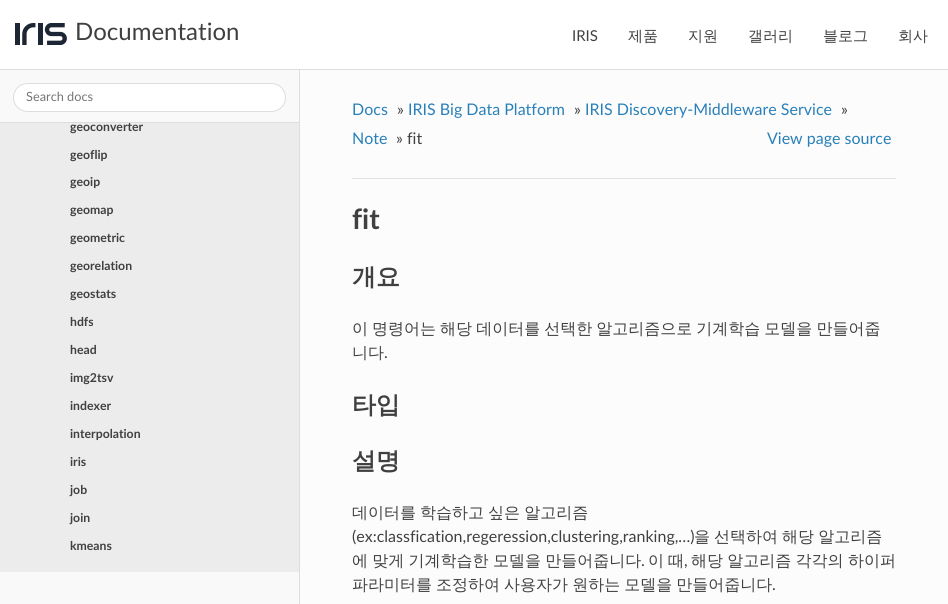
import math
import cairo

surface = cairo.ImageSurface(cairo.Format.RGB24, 948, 604)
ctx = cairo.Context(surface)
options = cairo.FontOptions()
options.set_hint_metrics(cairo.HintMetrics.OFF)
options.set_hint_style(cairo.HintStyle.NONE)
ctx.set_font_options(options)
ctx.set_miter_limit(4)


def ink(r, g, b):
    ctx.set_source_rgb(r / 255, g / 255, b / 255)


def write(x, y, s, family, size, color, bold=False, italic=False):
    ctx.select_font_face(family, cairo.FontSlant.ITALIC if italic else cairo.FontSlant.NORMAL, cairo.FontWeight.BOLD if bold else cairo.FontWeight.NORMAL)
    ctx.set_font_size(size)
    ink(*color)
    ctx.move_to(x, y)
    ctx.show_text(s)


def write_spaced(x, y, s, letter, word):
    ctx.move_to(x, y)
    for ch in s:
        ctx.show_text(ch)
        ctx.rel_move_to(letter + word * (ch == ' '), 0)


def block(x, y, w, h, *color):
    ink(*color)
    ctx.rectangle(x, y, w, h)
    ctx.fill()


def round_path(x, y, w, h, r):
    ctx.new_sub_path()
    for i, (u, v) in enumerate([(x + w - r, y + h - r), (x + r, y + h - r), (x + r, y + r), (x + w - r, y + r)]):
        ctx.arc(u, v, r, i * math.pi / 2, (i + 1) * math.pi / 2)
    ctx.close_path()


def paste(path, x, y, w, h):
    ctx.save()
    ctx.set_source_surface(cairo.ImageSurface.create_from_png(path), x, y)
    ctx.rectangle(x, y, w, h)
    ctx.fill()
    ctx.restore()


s1 = dict(family="Lato", size=24, color=(64, 64, 64))
s2 = dict(family="Lato", size=15, color=(64, 64, 64))
s3 = dict(family="WenQuanYi Zen Hei Medium", size=15, color=(64, 64, 64))
s4 = dict(family="Lato", size=12.25, color=(64, 64, 64), bold=True)
s5 = dict(family="Lato", size=12.75, color=(117, 117, 117))
s6 = dict(family="Lato", size=16, color=(41, 128, 185))
s7 = dict(family="Lato", size=16, color=(64, 64, 64))
s8 = dict(family="Lato", size=28, color=(64, 64, 64), bold=True)
s9 = dict(family="WenQuanYi Zen Hei", size=24, color=(64, 64, 64), bold=True)
s10 = dict(family="WenQuanYi Zen Hei Medium", size=16, color=(64, 64, 64))

ink(252, 252, 252)
ctx.paint()
block(0, 0, 948, 69, 255, 255, 255)
block(0, 69, 948, 1, 221, 221, 221)
paste("pic1.png", 15, 23, 52, 22)
write(75, 40, "Documentation", **s1)
write(572, 41, "IRIS", **s2)
write(628, 41, "제품", **s3)
write(688, 41, "지원", **s3)
write(748, 41, "갤러리", **s3)
write(823, 41, "블로그", **s3)
write(898, 41, "회사", **s3)
block(0, 572, 299, 32, 249, 249, 249)
block(299, 70, 1, 534, 221, 221, 221)
block(0, 70, 299, 52, 249, 249, 249)
block(0, 123, 299, 449, 236, 236, 236)
write(70, 131, "geoconverter", **s4)
block(0, 122, 300, 1, 221, 221, 221)
ink(255, 255, 255)
round_path(13.5, 83.5, 272, 28, 14)
ctx.fill_preserve()
ink(221, 221, 221)
ctx.set_line_width(1)
ctx.stroke()
write(26, 101, "Search docs", **s5)
write(70, 159, "geoflip", **s4)
write(70, 186, "geoip", **s4)
write(70, 214, "geomap", **s4)
write(70, 242, "geometric", **s4)
write(70, 270, "georelation", **s4)
write(70, 298, "geostats", **s4)
write(70, 326, "hdfs", **s4)
write(70, 354, "head", **s4)
write(70, 382, "img2tsv", **s4)
write(70, 410, "indexer", **s4)
write(70, 438, "interpolation", **s4)
write(70, 466, "iris", **s4)
write(70, 494, "job", **s4)
write(70, 522, "join", **s4)
write(70, 550, "kmeans", **s4)
write(352, 115, "Docs", **s6)
write(397, 115, "»", **s7)
write(408, 115, "IRIS Big Data Platform", **s6)
write(574, 115, "»", **s7)
write(585, 115, "IRIS Discovery-Middleware Service", **s6)
write(841, 115, "»", **s7)
write(352, 144, "Note", **s6)
write(396, 144, "» fit", **s7)
write(767, 144, "View page source", **s6)
block(352, 178, 544, 1, 225, 228, 229)
write(352, 229, "fit", **s8)
write(352, 285, "개요", **s9)
ctx.select_font_face("WenQuanYi Zen Hei Medium")
ctx.set_font_size(16)
write_spaced(352, 334, "이 명령어는 해당 데이터를 선택한 알고리즘으로 기계학습 모델을 만들어줍", 0, -0.75)
write(352, 358, "니다", **s10)
write(384, 358, ".", **s7)
write(352, 413, "타입", **s9)
write(352, 469, "설명", **s9)
ctx.select_font_face("WenQuanYi Zen Hei Medium")
ctx.set_font_size(16)
write_spaced(352, 518, "데이터를 학습하고 싶은 알고리즘", 0, -0.75)
write(352, 542, "(ex:classfication,regeression,clustering,ranking,…)", **s7)
ctx.select_font_face("WenQuanYi Zen Hei Medium")
write_spaced(694, 542, "을 선택하여 해당 알고리즘", 0, -0.75)
write_spaced(352, 566, "에 맞게 기계학습한 모델을 만들어줍니다", 0, -0.5)
write(641, 566, ".", **s7)
ctx.select_font_face("WenQuanYi Zen Hei Medium")
write_spaced(648, 566, "이 때", 0, -0.5)
write(684, 566, ",", **s7)
ctx.select_font_face("WenQuanYi Zen Hei Medium")
write_spaced(691, 566, "해당 알고리즘 각각의 하이퍼", 0, -0.5)
write_spaced(352, 590, "파라미터를 조정하여 사용자가 원하는 모델을 만들어줍니다", 0, -0.75)
write(772, 590, ".", **s7)
surface.write_to_png("screenshot.png")
